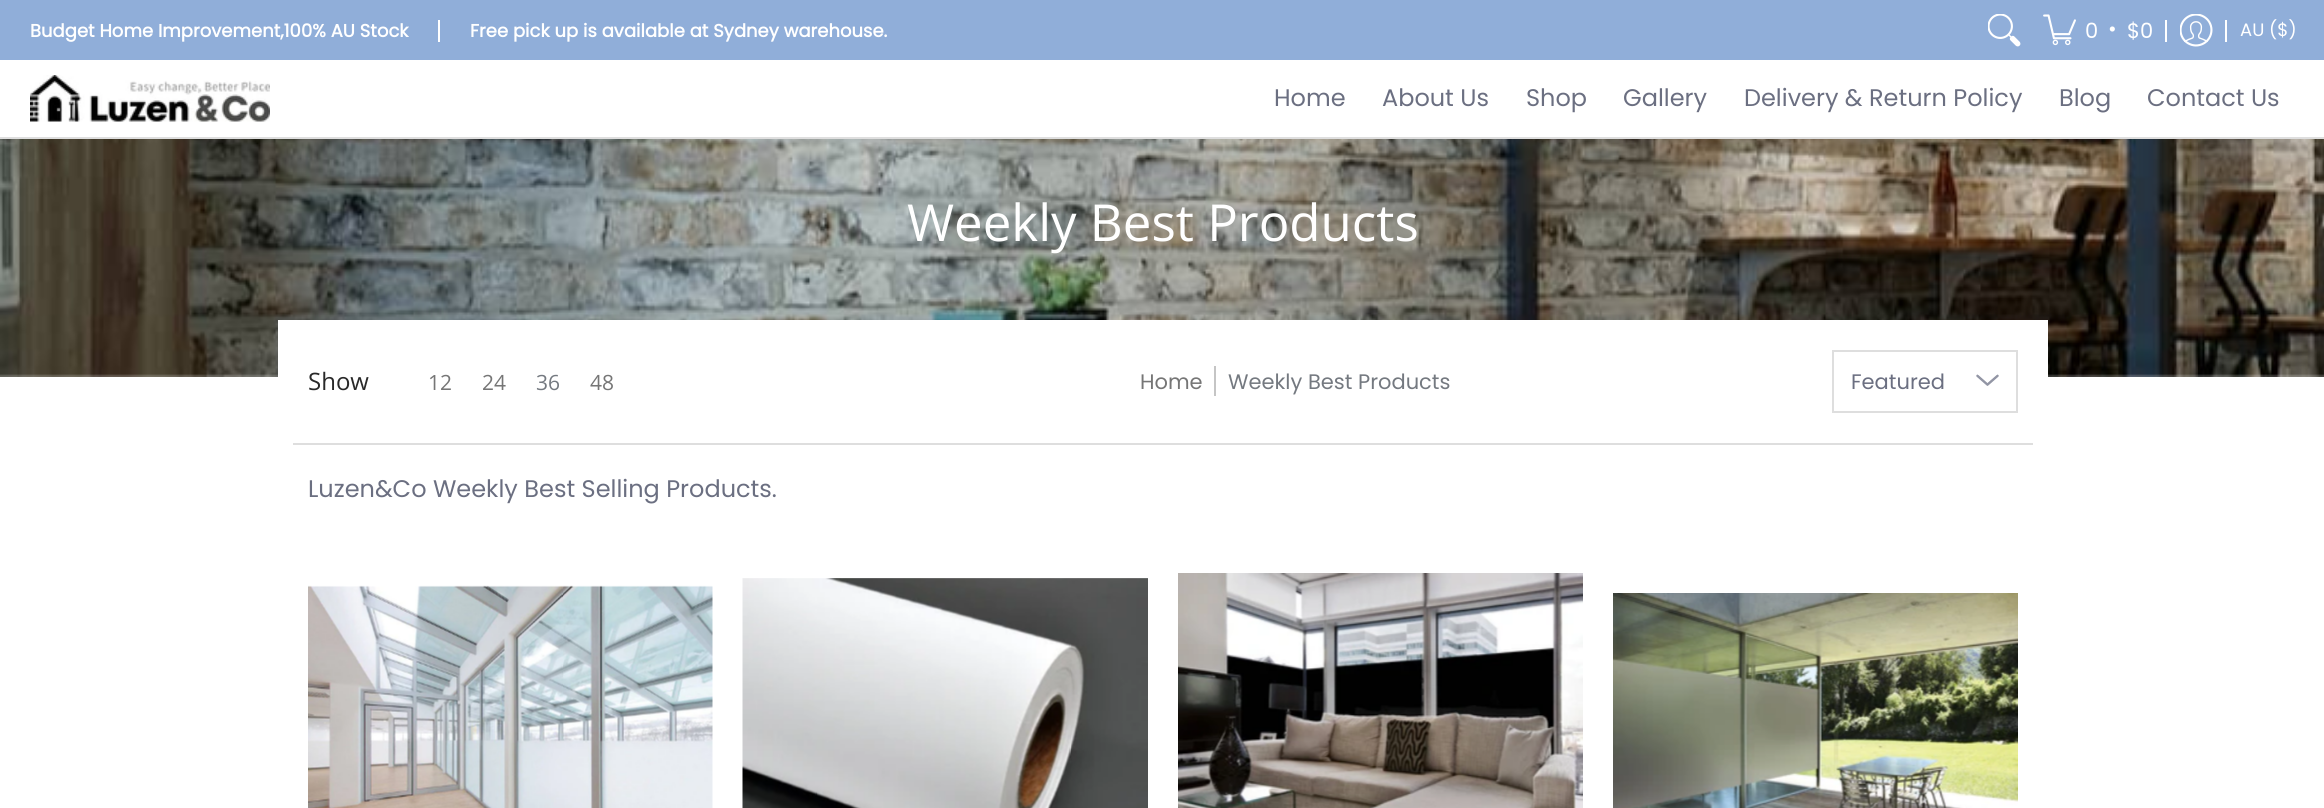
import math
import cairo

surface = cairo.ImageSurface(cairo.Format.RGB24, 2324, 808)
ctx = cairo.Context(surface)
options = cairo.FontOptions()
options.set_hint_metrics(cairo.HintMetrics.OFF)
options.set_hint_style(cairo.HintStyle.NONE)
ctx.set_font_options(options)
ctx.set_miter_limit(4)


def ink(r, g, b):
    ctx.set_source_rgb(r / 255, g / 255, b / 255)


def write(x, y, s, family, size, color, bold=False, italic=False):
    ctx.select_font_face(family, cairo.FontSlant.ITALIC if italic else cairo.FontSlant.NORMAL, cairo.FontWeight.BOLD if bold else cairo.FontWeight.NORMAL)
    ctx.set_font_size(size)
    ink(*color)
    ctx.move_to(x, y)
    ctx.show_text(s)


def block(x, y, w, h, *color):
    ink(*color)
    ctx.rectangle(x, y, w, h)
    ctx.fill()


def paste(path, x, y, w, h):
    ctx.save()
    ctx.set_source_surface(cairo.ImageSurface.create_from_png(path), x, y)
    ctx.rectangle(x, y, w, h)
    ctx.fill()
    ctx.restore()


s1 = dict(family="Poppins", size=18, color=(255, 255, 255), bold=True)
s2 = dict(family="Poppins", size=21, color=(255, 255, 255))
s3 = dict(family="Poppins", size=18, color=(255, 255, 255))
s4 = dict(family="Poppins", size=24, color=(107, 111, 129))
s5 = dict(family="Open Sans", size=51, color=(255, 255, 255))
s6 = dict(family="Open Sans", size=24, color=(41, 41, 41))
s7 = dict(family="Open Sans", size=21, color=(118, 118, 118))
s8 = dict(family="Open Sans", size=21, color=(116, 121, 128))
s9 = dict(family="Poppins", size=21, color=(118, 118, 118))
s10 = dict(family="Poppins", size=21, color=(116, 121, 128))
s11 = dict(family="Poppins", size=21, color=(107, 111, 129))

ink(255, 255, 255)
ctx.paint()
block(0, 0, 2324, 60, 144, 174, 217)
write(30, 37, "Budget Home Improvement,100% AU Stock", **s1)
block(438, 20, 2, 22, 255, 255, 255)
write(470, 37, "Free pick up is available at Sydney warehouse.", **s1)
paste("pic1.png", 1988, 14, 33, 33)
paste("pic2.png", 2043, 14, 33, 32)
write(2085, 38, "0", **s2)
write(2108, 36, "•", **s2)
write(2127, 38, "$0", **s2)
block(2165, 20, 2, 22, 255, 255, 255)
paste("pic3.png", 2180, 14, 33, 33)
block(2225, 20, 2, 22, 255, 255, 255)
write(2240, 36, "AU ($)", **s3)
block(0, 137, 2324, 2, 222, 222, 222)
paste("pic4.png", 30, 75, 240, 47)
write(1274, 106, "Home", **s4)
write(1382, 106, "About Us", **s4)
write(1526, 106, "Shop", **s4)
write(1623, 106, "Gallery", **s4)
write(1744, 106, "Delivery & Return Policy", **s4)
write(2059, 106, "Blog", **s4)
write(2147, 106, "Contact Us", **s4)
paste("pic5.png", 0, 139, 2324, 238)
write(907, 241, "Weekly Best Products", **s5)
block(278, 320, 1770, 57, 255, 255, 255)
block(293, 443, 1740, 2, 222, 222, 222)
write(308, 390, "Show", **s6)
write(428, 390, "12", **s7)
write(482, 390, "24", **s7)
write(536, 390, "36", **s8)
write(590, 390, "48", **s7)
write(1140, 389, "Home", **s9)
block(1214, 366, 2, 30, 197, 197, 197)
write(1228, 389, "Weekly Best Products", **s10)
paste("pic6.png", 1976, 374, 23, 12)
ctx.rectangle(1833, 351, 184, 61)
ink(222, 222, 222)
ctx.stroke()
write(1851, 389, "Featured", **s11)
write(308, 497, "Luzen&Co Weekly Best Selling Products.", **s4)
paste("pic7.png", 308, 585, 405, 223)
paste("pic8.png", 742, 578, 406, 230)
paste("pic9.png", 1178, 573, 405, 235)
paste("pic10.png", 1613, 593, 405, 215)
surface.write_to_png("screenshot.png")
